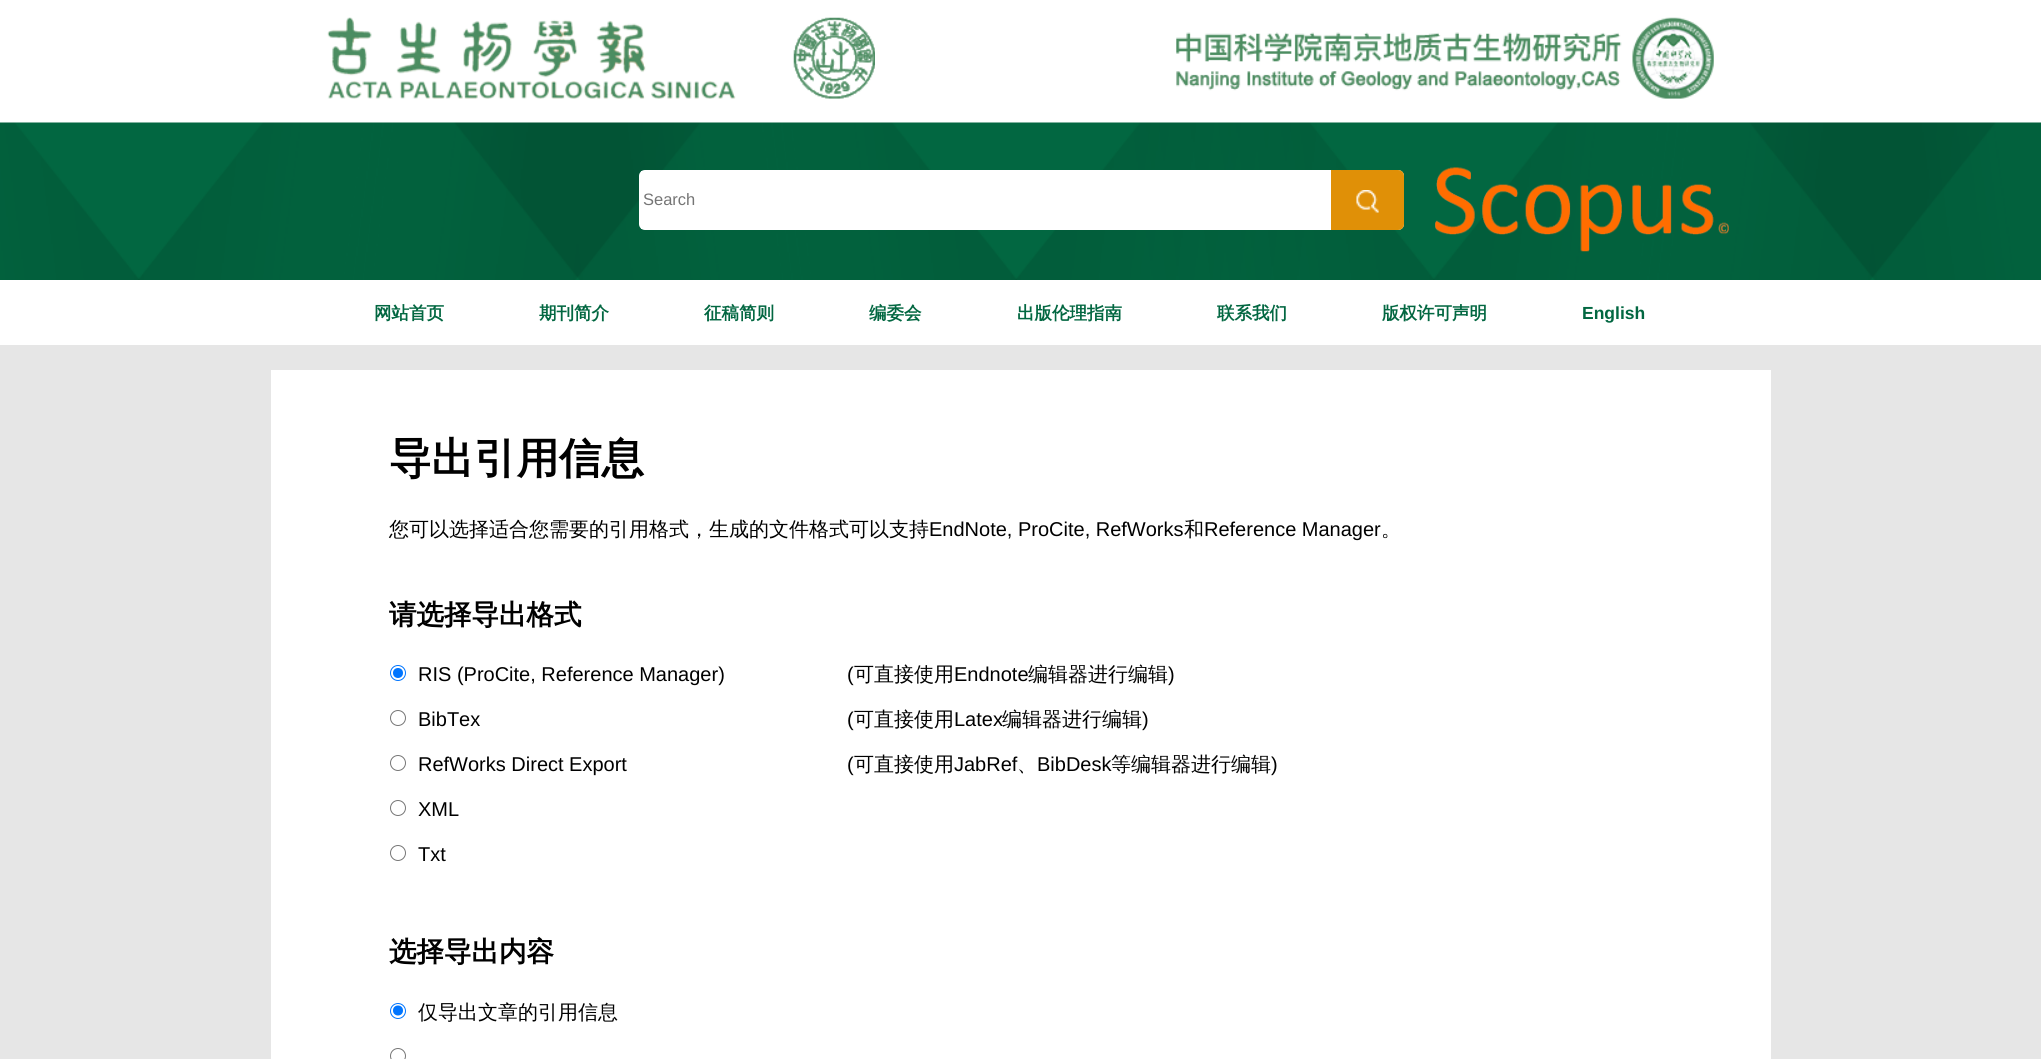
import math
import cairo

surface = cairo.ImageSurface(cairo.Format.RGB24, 2041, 1059)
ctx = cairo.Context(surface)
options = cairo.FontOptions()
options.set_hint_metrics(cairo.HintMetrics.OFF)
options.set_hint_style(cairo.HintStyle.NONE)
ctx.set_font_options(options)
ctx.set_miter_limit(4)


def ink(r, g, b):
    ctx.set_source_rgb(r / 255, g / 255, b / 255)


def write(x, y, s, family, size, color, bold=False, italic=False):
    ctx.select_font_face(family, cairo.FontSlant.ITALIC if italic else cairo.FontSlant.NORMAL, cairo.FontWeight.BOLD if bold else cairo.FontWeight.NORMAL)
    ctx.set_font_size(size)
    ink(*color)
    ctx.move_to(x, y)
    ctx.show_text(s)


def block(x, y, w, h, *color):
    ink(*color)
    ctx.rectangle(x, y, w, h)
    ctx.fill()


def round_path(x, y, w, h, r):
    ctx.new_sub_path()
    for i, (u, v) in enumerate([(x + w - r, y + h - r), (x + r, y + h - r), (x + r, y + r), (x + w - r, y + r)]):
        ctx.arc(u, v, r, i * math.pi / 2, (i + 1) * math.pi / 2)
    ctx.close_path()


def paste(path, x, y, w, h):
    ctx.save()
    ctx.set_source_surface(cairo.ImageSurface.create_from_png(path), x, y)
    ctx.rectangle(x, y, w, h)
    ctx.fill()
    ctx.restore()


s1 = dict(family="Liberation Sans", size=16.5, color=(117, 117, 117))
s2 = dict(family="WenQuanYi Zen Hei", size=17.5, color=(2, 103, 65), bold=True)
s3 = dict(family="Liberation Sans", size=17.5, color=(2, 103, 65), bold=True)
s4 = dict(family="WenQuanYi Zen Hei", size=42.5, color=(0, 0, 0), bold=True)
s5 = dict(family="WenQuanYi Zen Hei Medium", size=20, color=(0, 0, 0))
s6 = dict(family="Liberation Sans", size=20, color=(0, 0, 0))
s7 = dict(family="WenQuanYi Zen Hei", size=27.5, color=(0, 0, 0), bold=True)

ink(230, 230, 230)
ctx.paint()
block(0, 0, 2041, 123, 255, 255, 255)
paste("pic1.png", 327, 17, 548, 82)
paste("pic2.png", 1176, 17, 538, 82)
paste("pic3.png", 0, 122, 2041, 158)
round_path(639, 170, 765, 60, 6)
ctx.fill()
block(641, 171, 1, 58, 255, 255, 255)
write(643, 205, "Search", **s1)
ink(224, 144, 7)
ctx.new_path()
ctx.move_to(1331, 170)
ctx.line_to(1398, 170)
ctx.curve_to(1401.5, 170, 1404, 172.5, 1404, 176)
ctx.line_to(1404, 224)
ctx.curve_to(1404, 227.5, 1401.5, 230, 1398, 230)
ctx.line_to(1331, 230)
ctx.close_path()
ctx.fill()
paste("pic4.png", 1356, 190, 23, 23)
paste("pic5.png", 1435, 167, 294, 85)
block(0, 280, 2041, 65, 255, 255, 255)
write(374, 319, "网站首页", **s2)
write(539, 319, "期刊简介", **s2)
write(704, 319, "征稿简则", **s2)
write(869, 319, "编委会", **s2)
write(1017, 319, "出版伦理指南", **s2)
write(1217, 319, "联系我们", **s2)
write(1382, 319, "版权许可声明", **s2)
write(1582, 319, "English", **s3)
block(271, 370, 1500, 689, 255, 255, 255)
write(389, 473, "导出引用信息", **s4)
write(389, 536, "您可以选择适合您需要的引用格式，生成的文件格式可以支持", **s5)
write(929, 536, "EndNote, ProCite, RefWorks", **s6)
write(1184, 536, "和", **s5)
write(1204, 536, "Reference Manager", **s6)
write(1381, 536, "。", **s5)
write(389, 624, "请选择导出格式", **s7)
ctx.new_path()
ctx.arc(398, 673, 7.5, 0, 2 * math.pi)
ink(0, 117, 255)
ctx.set_line_width(1)
ctx.stroke()
ctx.arc(398, 673, 5, 0, 2 * math.pi)
ctx.fill()
write(418, 681, "RIS (ProCite, Reference Manager)", **s6)
write(847, 681, "(", **s6)
write(854, 681, "可直接使用", **s5)
write(954, 681, "Endnote", **s6)
write(1028, 681, "编辑器进行编辑", **s5)
write(1168, 681, ")", **s6)
ctx.new_path()
ctx.arc(398, 718, 7.5, 0, 2 * math.pi)
ink(118, 118, 118)
ctx.stroke()
write(418, 726, "BibTex", **s6)
write(847, 726, "(", **s6)
write(854, 726, "可直接使用", **s5)
write(954, 726, "Latex", **s6)
write(1002, 726, "编辑器进行编辑", **s5)
write(1142, 726, ")", **s6)
ctx.new_path()
ctx.arc(398, 763, 7.5, 0, 2 * math.pi)
ink(118, 118, 118)
ctx.stroke()
write(418, 771, "RefWorks Direct Export", **s6)
write(847, 771, "(", **s6)
write(854, 771, "可直接使用", **s5)
write(954, 771, "JabRef", **s6)
write(1017, 771, "、", **s5)
write(1037, 771, "BibDesk", **s6)
write(1111, 771, "等编辑器进行编辑", **s5)
write(1271, 771, ")", **s6)
ctx.new_path()
ctx.arc(398, 808, 7.5, 0, 2 * math.pi)
ink(118, 118, 118)
ctx.stroke()
write(418, 816, "XML", **s6)
ctx.new_path()
ctx.arc(398, 853, 7.5, 0, 2 * math.pi)
ink(118, 118, 118)
ctx.stroke()
write(418, 861, "Txt", **s6)
write(389, 961, "选择导出内容", **s7)
ctx.new_path()
ctx.arc(398, 1011, 7.5, 0, 2 * math.pi)
ink(0, 117, 255)
ctx.stroke()
ctx.arc(398, 1010.5, 5, 0, 2 * math.pi)
ctx.fill()
write(418, 1019, "仅导出文章的引用信息", **s5)
ctx.new_path()
ctx.arc(398, 1056, 7.5, 0, 2 * math.pi)
ink(118, 118, 118)
ctx.stroke()
surface.write_to_png("screenshot.png")
